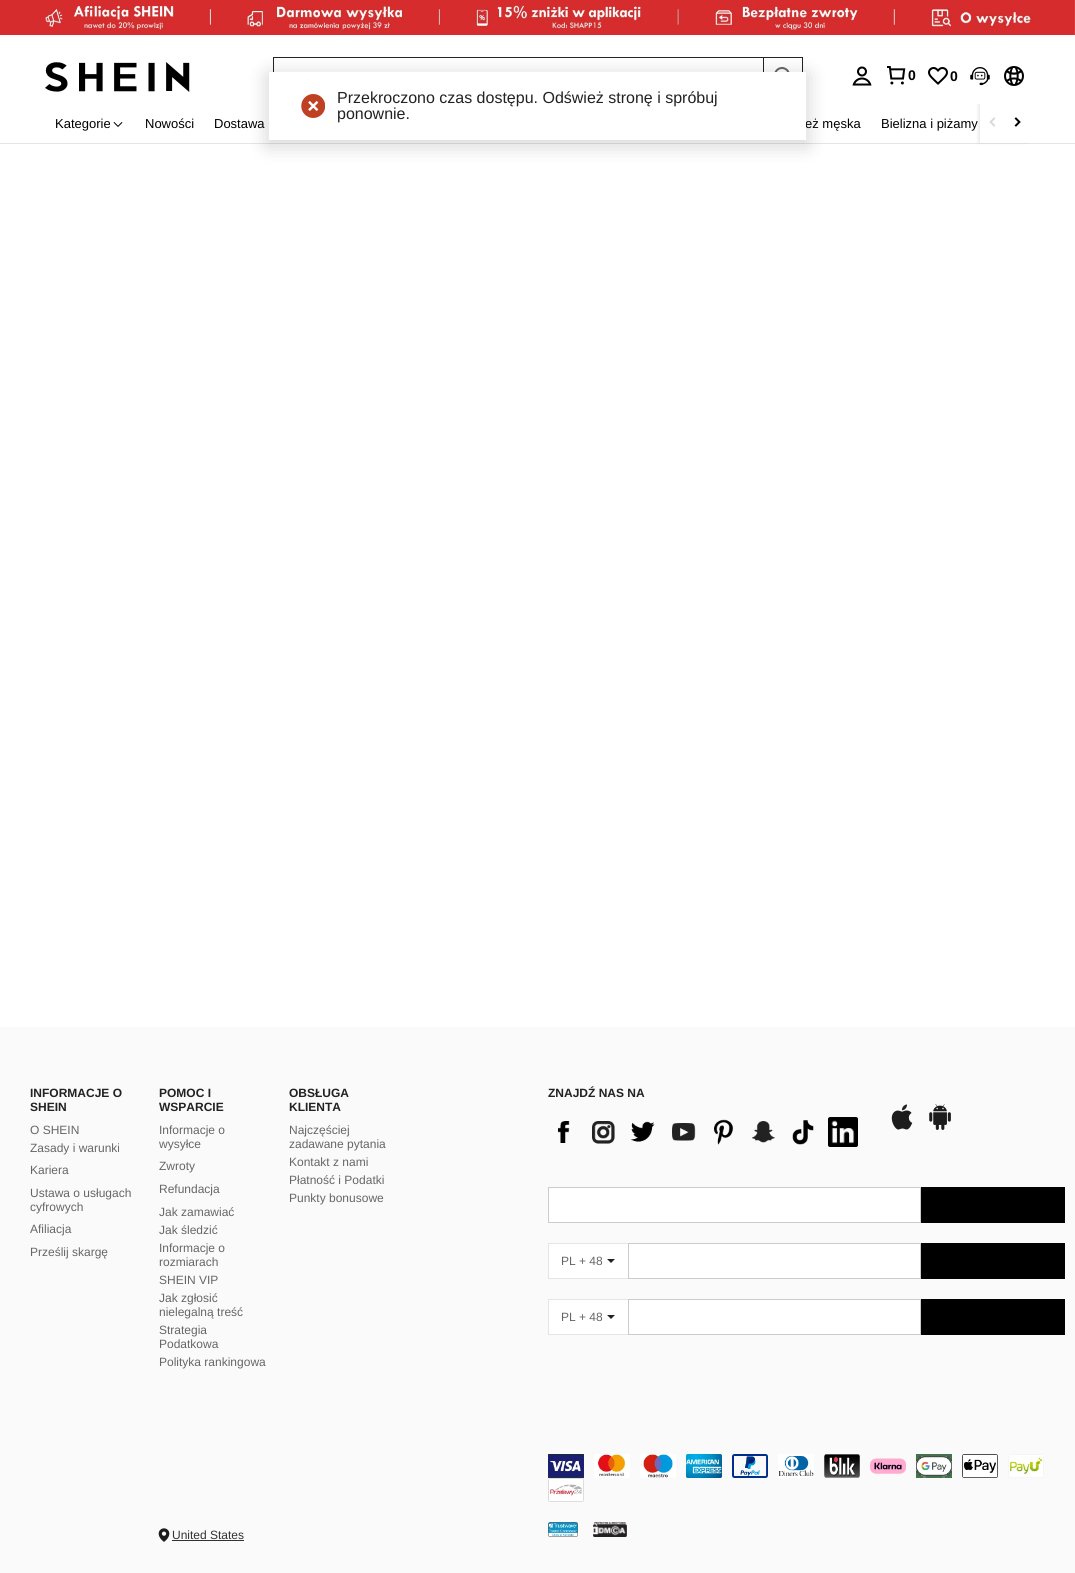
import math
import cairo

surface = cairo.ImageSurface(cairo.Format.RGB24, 1075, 1573)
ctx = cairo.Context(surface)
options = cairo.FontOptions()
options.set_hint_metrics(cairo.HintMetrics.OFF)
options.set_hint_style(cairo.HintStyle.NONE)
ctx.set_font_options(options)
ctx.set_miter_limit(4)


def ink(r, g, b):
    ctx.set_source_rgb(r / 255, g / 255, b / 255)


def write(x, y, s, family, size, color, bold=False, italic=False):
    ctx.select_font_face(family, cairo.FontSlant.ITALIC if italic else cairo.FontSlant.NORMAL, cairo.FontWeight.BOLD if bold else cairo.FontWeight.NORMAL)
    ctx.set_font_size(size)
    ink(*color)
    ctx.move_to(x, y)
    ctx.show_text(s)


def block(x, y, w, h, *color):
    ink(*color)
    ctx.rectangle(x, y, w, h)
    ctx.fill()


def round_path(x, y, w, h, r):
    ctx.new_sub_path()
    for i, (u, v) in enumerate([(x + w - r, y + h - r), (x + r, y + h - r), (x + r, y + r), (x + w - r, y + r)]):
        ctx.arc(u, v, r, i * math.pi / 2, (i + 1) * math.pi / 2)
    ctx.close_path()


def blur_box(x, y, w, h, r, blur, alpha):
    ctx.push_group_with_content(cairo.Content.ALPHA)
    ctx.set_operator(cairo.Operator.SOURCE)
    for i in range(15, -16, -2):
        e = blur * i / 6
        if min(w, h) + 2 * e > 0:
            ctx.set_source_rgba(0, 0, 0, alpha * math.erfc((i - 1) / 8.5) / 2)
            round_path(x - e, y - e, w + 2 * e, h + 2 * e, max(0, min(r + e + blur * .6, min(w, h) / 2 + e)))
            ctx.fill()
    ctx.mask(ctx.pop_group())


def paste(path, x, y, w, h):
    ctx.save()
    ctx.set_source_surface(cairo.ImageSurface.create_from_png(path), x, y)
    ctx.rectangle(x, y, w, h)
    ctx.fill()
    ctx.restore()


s1 = dict(family="Liberation Sans", size=14, color=(0, 0, 0), bold=True)
s2 = dict(family="Liberation Sans", size=13, color=(0, 0, 0))
s3 = dict(family="Liberation Sans", size=12, color=(34, 34, 34), bold=True)
s4 = dict(family="Liberation Sans", size=12, color=(102, 102, 102))
s5 = dict(family="Liberation Sans", size=12, color=(50, 50, 50))
s6 = dict(family="Liberation Sans", size=16, color=(34, 34, 34))

ink(255, 255, 255)
ctx.paint()
paste("pic1.png", 0, 0, 1075, 35)
block(0, 143, 1075, 1, 229, 229, 229)
ink(0, 0, 0)
blur_box(978, 104, 50, 39, 0, 1.5, 0.08)
block(977, 102, 52, 2, 255, 255, 255)
paste("pic2.png", 45, 62, 145, 30)
block(273, 57, 490, 1, 34, 34, 34)
block(273, 57, 1, 15, 34, 34, 34)
ctx.rectangle(763.5, 57.5, 39, 37)
ctx.set_line_width(1)
ctx.stroke()
paste("pic3.png", 774, 67, 16, 5)
paste("pic4.png", 852, 66, 20, 20)
paste("pic5.png", 887, 66, 19, 19)
write(908, 80, "0", **s1)
paste("pic6.png", 928, 67, 20, 18)
write(950, 81, "0", **s1)
paste("pic7.png", 970, 67, 20, 19)
paste("pic8.png", 1004, 66, 20, 20)
write(55, 128, "Kategorie", **s2)
paste("pic9.png", 113, 122, 10, 5)
write(145, 128, "Nowości", **s2)
write(214, 128, "Dostawa", **s2)
write(805, 128, "eż męska", **s2)
write(881, 128, "Bielizna i piżamy", **s2)
block(980, 104, 50, 39, 255, 255, 255)
paste("pic10.png", 989, 117, 7, 10)
paste("pic11.png", 1014, 117, 7, 10)
block(0, 1027, 1075, 546, 250, 250, 250)
write(30, 1097, "INFORMACJE O", **s3)
write(30, 1111, "SHEIN", **s3)
write(30, 1134, "O SHEIN", **s4)
write(30, 1152, "Zasady i warunki", **s4)
write(30, 1174, "Kariera", **s4)
write(30, 1197, "Ustawa o usługach", **s4)
write(30, 1211, "cyfrowych", **s4)
write(30, 1233, "Afiliacja", **s4)
write(30, 1256, "Prześlij skargę", **s4)
write(159, 1097, "POMOC I", **s3)
write(159, 1111, "WSPARCIE", **s3)
write(159, 1134, "Informacje o", **s4)
write(159, 1148, "wysyłce", **s4)
write(159, 1170, "Zwroty", **s4)
write(159, 1193, "Refundacja", **s4)
write(159, 1216, "Jak zamawiać", **s4)
write(159, 1234, "Jak śledzić", **s4)
write(159, 1252, "Informacje o", **s4)
write(159, 1266, "rozmiarach", **s4)
write(159, 1284, "SHEIN VIP", **s4)
write(159, 1302, "Jak zgłosić", **s4)
write(159, 1316, "nielegalną treść", **s4)
write(159, 1334, "Strategia", **s4)
write(159, 1348, "Podatkowa", **s4)
write(159, 1366, "Polityka rankingowa", **s4)
write(289, 1097, "OBSŁUGA", **s3)
write(289, 1111, "KLIENTA", **s3)
write(289, 1134, "Najczęściej", **s4)
write(289, 1148, "zadawane pytania", **s4)
write(289, 1166, "Kontakt z nami", **s4)
write(289, 1184, "Płatność i Podatki", **s4)
write(289, 1202, "Punkty bonusowe", **s4)
write(548, 1097, "ZNAJDŹ NAS NA", **s3)
paste("pic12.png", 558, 1121, 12, 22)
paste("pic13.png", 592, 1121, 23, 23)
paste("pic14.png", 630, 1121, 25, 21)
paste("pic15.png", 672, 1123, 24, 18)
paste("pic16.png", 714, 1119, 20, 26)
paste("pic17.png", 752, 1121, 23, 22)
paste("pic18.png", 792, 1120, 22, 25)
paste("pic19.png", 828, 1117, 30, 30)
paste("pic20.png", 891, 1104, 22, 26)
paste("pic21.png", 929, 1104, 22, 26)
ink(255, 255, 255)
ctx.rectangle(548.5, 1187.5, 372, 35)
ctx.fill_preserve()
ink(204, 204, 204)
ctx.stroke()
block(921, 1187, 144, 36, 0, 0, 0)
block(549, 1244, 79, 34, 255, 255, 255)
block(548, 1243, 80, 1, 229, 229, 229)
block(548, 1278, 80, 1, 229, 229, 229)
block(548, 1243, 1, 36, 229, 229, 229)
write(561, 1265, "PL + 48", **s4)
ink(34, 34, 34)
ctx.new_path()
ctx.move_to(607, 1259)
ctx.line_to(615, 1259)
ctx.line_to(611, 1263)
ctx.close_path()
ctx.fill()
ink(255, 255, 255)
ctx.rectangle(628.5, 1243.5, 292, 35)
ctx.fill_preserve()
ink(204, 204, 204)
ctx.stroke()
block(921, 1243, 144, 36, 0, 0, 0)
block(549, 1300, 79, 34, 255, 255, 255)
block(548, 1299, 80, 1, 229, 229, 229)
block(548, 1334, 80, 1, 229, 229, 229)
block(548, 1299, 1, 36, 229, 229, 229)
write(561, 1321, "PL + 48", **s4)
ink(34, 34, 34)
ctx.new_path()
ctx.move_to(607, 1315)
ctx.line_to(615, 1315)
ctx.line_to(611, 1319)
ctx.close_path()
ctx.fill()
ink(255, 255, 255)
ctx.rectangle(628.5, 1299.5, 292, 35)
ctx.fill_preserve()
ink(204, 204, 204)
ctx.stroke()
block(921, 1299, 144, 36, 0, 0, 0)
paste("pic22.png", 548, 1454, 36, 24)
paste("pic23.png", 594, 1454, 36, 24)
paste("pic24.png", 640, 1454, 36, 24)
paste("pic25.png", 686, 1454, 36, 24)
paste("pic26.png", 732, 1454, 36, 24)
paste("pic27.png", 778, 1454, 36, 24)
paste("pic28.png", 824, 1454, 36, 24)
paste("pic29.png", 870, 1458, 36, 16)
paste("pic30.png", 916, 1454, 36, 24)
paste("pic31.png", 962, 1454, 36, 24)
paste("pic32.png", 1008, 1454, 36, 24)
paste("pic33.png", 548, 1478, 36, 24)
paste("pic34.png", 158, 1528, 12, 14)
write(172, 1539, "United States", **s5)
block(172, 1540, 72, 1, 50, 50, 50)
paste("pic35.png", 548, 1522, 30, 15)
paste("pic36.png", 593, 1522, 34, 15)
ink(0, 0, 0)
blur_box(267, 74, 541, 72, 0, 10, 0.16)
block(269, 72, 537, 68, 255, 255, 255)
paste("pic37.png", 301, 94, 24, 24)
write(337, 103, "Przekroczono czas dostępu. Odśwież stronę i spróbuj", **s6)
write(337, 119, "ponownie.", **s6)
surface.write_to_png("screenshot.png")
